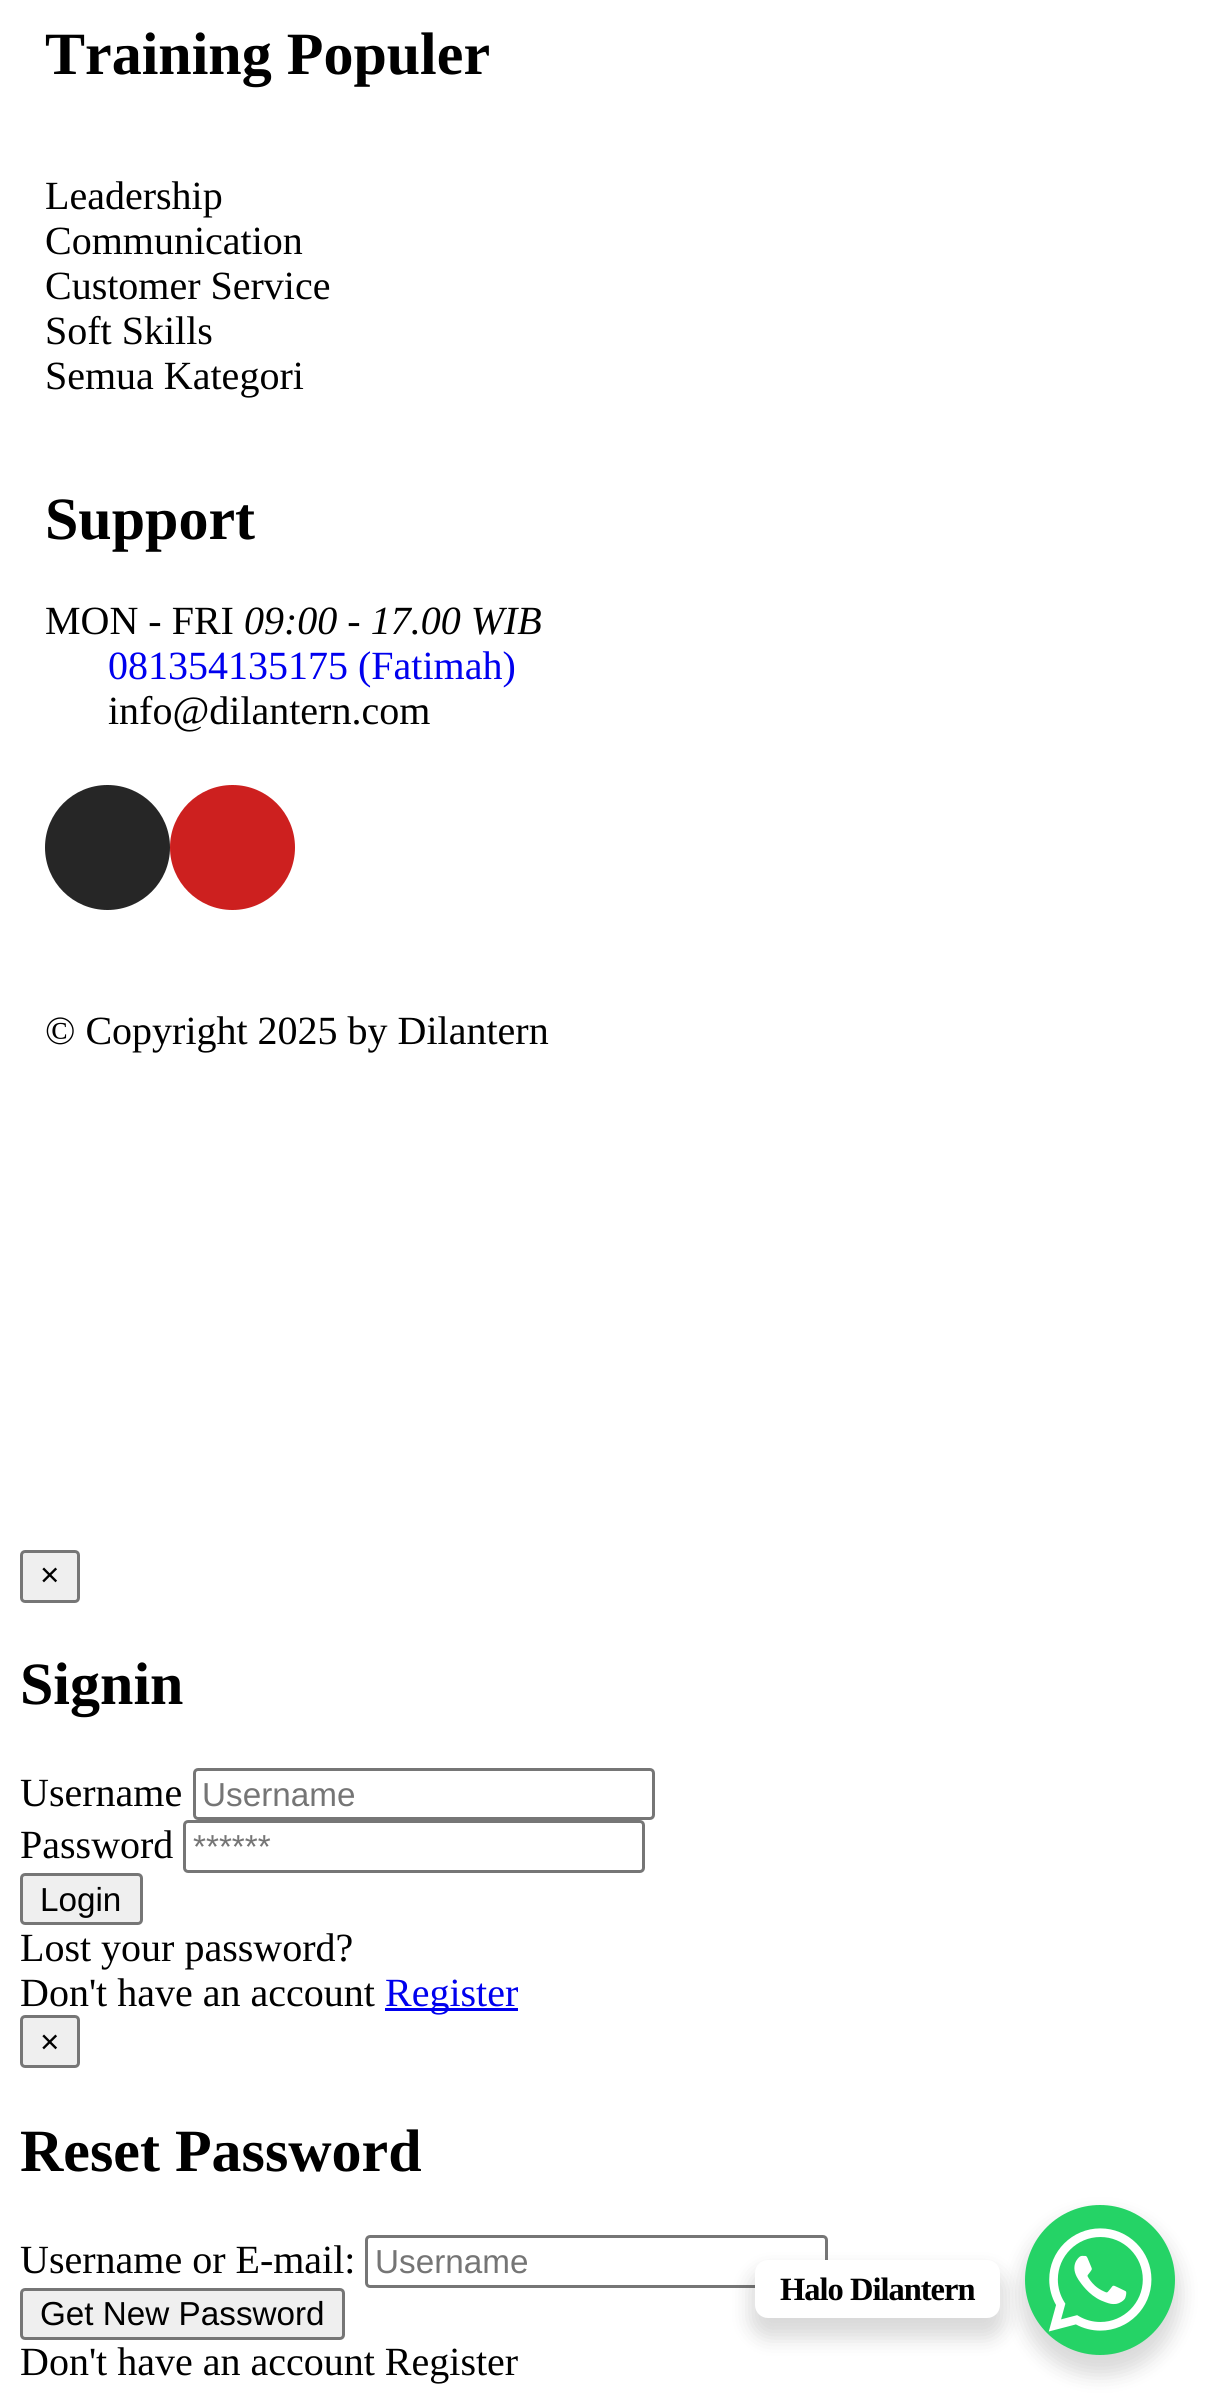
import math
import cairo

surface = cairo.ImageSurface(cairo.Format.RGB24, 1225, 2403)
ctx = cairo.Context(surface)
options = cairo.FontOptions()
options.set_hint_metrics(cairo.HintMetrics.OFF)
options.set_hint_style(cairo.HintStyle.NONE)
ctx.set_font_options(options)
ctx.set_miter_limit(4)


def ink(r, g, b):
    ctx.set_source_rgb(r / 255, g / 255, b / 255)


def write(x, y, s, family, size, color, bold=False, italic=False):
    ctx.select_font_face(family, cairo.FontSlant.ITALIC if italic else cairo.FontSlant.NORMAL, cairo.FontWeight.BOLD if bold else cairo.FontWeight.NORMAL)
    ctx.set_font_size(size)
    ink(*color)
    ctx.move_to(x, y)
    ctx.show_text(s)


def write_spaced(x, y, s, letter, word):
    ctx.move_to(x, y)
    for ch in s:
        ctx.show_text(ch)
        ctx.rel_move_to(letter + word * (ch == ' '), 0)


def block(x, y, w, h, *color):
    ink(*color)
    ctx.rectangle(x, y, w, h)
    ctx.fill()


def round_path(x, y, w, h, r):
    ctx.new_sub_path()
    for i, (u, v) in enumerate([(x + w - r, y + h - r), (x + r, y + h - r), (x + r, y + r), (x + w - r, y + r)]):
        ctx.arc(u, v, r, i * math.pi / 2, (i + 1) * math.pi / 2)
    ctx.close_path()


def blur_box(x, y, w, h, r, blur, alpha):
    ctx.push_group_with_content(cairo.Content.ALPHA)
    ctx.set_operator(cairo.Operator.SOURCE)
    for i in range(15, -16, -2):
        e = blur * i / 6
        if min(w, h) + 2 * e > 0:
            ctx.set_source_rgba(0, 0, 0, alpha * math.erfc((i - 1) / 8.5) / 2)
            round_path(x - e, y - e, w + 2 * e, h + 2 * e, max(0, min(r + e + blur * .6, min(w, h) / 2 + e)))
            ctx.fill()
    ctx.mask(ctx.pop_group())


def paste(path, x, y, w, h):
    ctx.save()
    ctx.set_source_surface(cairo.ImageSurface.create_from_png(path), x, y)
    ctx.rectangle(x, y, w, h)
    ctx.fill()
    ctx.restore()


s1 = dict(family="Liberation Serif", size=60, color=(0, 0, 0), bold=True)
s2 = dict(family="Liberation Serif", size=40, color=(0, 0, 0))
s3 = dict(family="Liberation Serif", size=40, color=(0, 0, 0), italic=True)
s4 = dict(family="Liberation Serif", size=40, color=(0, 0, 238))
s5 = dict(family="Liberation Sans", size=33.25, color=(0, 0, 0))
s6 = dict(family="Liberation Sans", size=33.25, color=(117, 117, 117))

ink(255, 255, 255)
ctx.paint()
write(45, 74, "Training Populer", **s1)
write(45, 209, "Leadership", **s2)
write(45, 254, "Communication", **s2)
write(45, 299, "Customer Service", **s2)
write(45, 344, "Soft Skills", **s2)
write(45, 389, "Semua Kategori", **s2)
write(45, 539, "Support", **s1)
write(45, 634, "MON - FRI", **s2)
write(244, 634, "09:00 - 17.00 WIB", **s3)
write(108, 679, "081354135175 (Fatimah)", **s4)
write(108, 724, "info@dilantern.com", **s2)
ink(38, 38, 38)
ctx.new_path()
ctx.arc(107.5, 847.5, 62.5, 0, 2 * math.pi)
ctx.fill()
ink(205, 32, 31)
ctx.arc(232.5, 847.5, 62.5, 0, 2 * math.pi)
ctx.fill()
write(45, 1044, "© Copyright 2025 by Dilantern", **s2)
ink(239, 239, 239)
round_path(21.5, 1551.5, 57, 50, 3.5)
ctx.fill_preserve()
ink(118, 118, 118)
ctx.set_line_width(3)
ctx.stroke()
write(40, 1586, "×", **s5)
write(20, 1704, "Signin", **s1)
write(20, 1806, "Username", **s2)
round_path(194.5, 1769.5, 459, 49, 3.5)
ink(118, 118, 118)
ctx.stroke()
write(202, 1806, "Username", **s6)
write(20, 1858, "Password", **s2)
round_path(184.5, 1821.5, 459, 50, 3.5)
ink(118, 118, 118)
ctx.stroke()
write(193, 1858, "******", **s6)
ink(239, 239, 239)
round_path(21.5, 1874.5, 120, 49, 3.5)
ctx.fill_preserve()
ink(118, 118, 118)
ctx.stroke()
write(40, 1911, "Login", **s5)
write(20, 1961, "Lost your password?", **s2)
write(20, 2006, "Don't have an account", **s2)
block(385, 2008, 133, 3, 0, 0, 238)
write(385, 2006, "Register", **s4)
ink(239, 239, 239)
round_path(21.5, 2016.5, 57, 50, 3.5)
ctx.fill_preserve()
ink(118, 118, 118)
ctx.stroke()
write(40, 2053, "×", **s5)
write(20, 2171, "Reset Password", **s1)
write(20, 2273, "Username or E-mail:", **s2)
round_path(366.5, 2236.5, 460, 50, 3.5)
ink(118, 118, 118)
ctx.stroke()
write(375, 2273, "Username", **s6)
ink(239, 239, 239)
round_path(21.5, 2289.5, 322, 49, 3.5)
ctx.fill_preserve()
ink(118, 118, 118)
ctx.stroke()
write(40, 2325, "Get New Password", **s5)
write(20, 2375, "Don't have an account Register", **s2)
ink(0, 0, 0)
blur_box(1020, 2215, 160, 160, 80, 10, 0.15)
ink(37, 211, 102)
ctx.arc(1100, 2280, 75, 0, 2 * math.pi)
ctx.fill()
ink(0, 0, 0)
blur_box(750, 2270, 255, 68, 18, 10, 0.15)
ink(255, 255, 255)
round_path(755, 2260, 245, 58, 13)
ctx.fill()
ctx.select_font_face("Liberation Serif", cairo.FontSlant.NORMAL, cairo.FontWeight.BOLD)
ctx.set_font_size(32.5)
ink(0, 0, 0)
write_spaced(780, 2300, "Halo Dilantern", -1, 0)
paste("pic1.png", 1048, 2228, 104, 104)
surface.write_to_png("screenshot.png")
